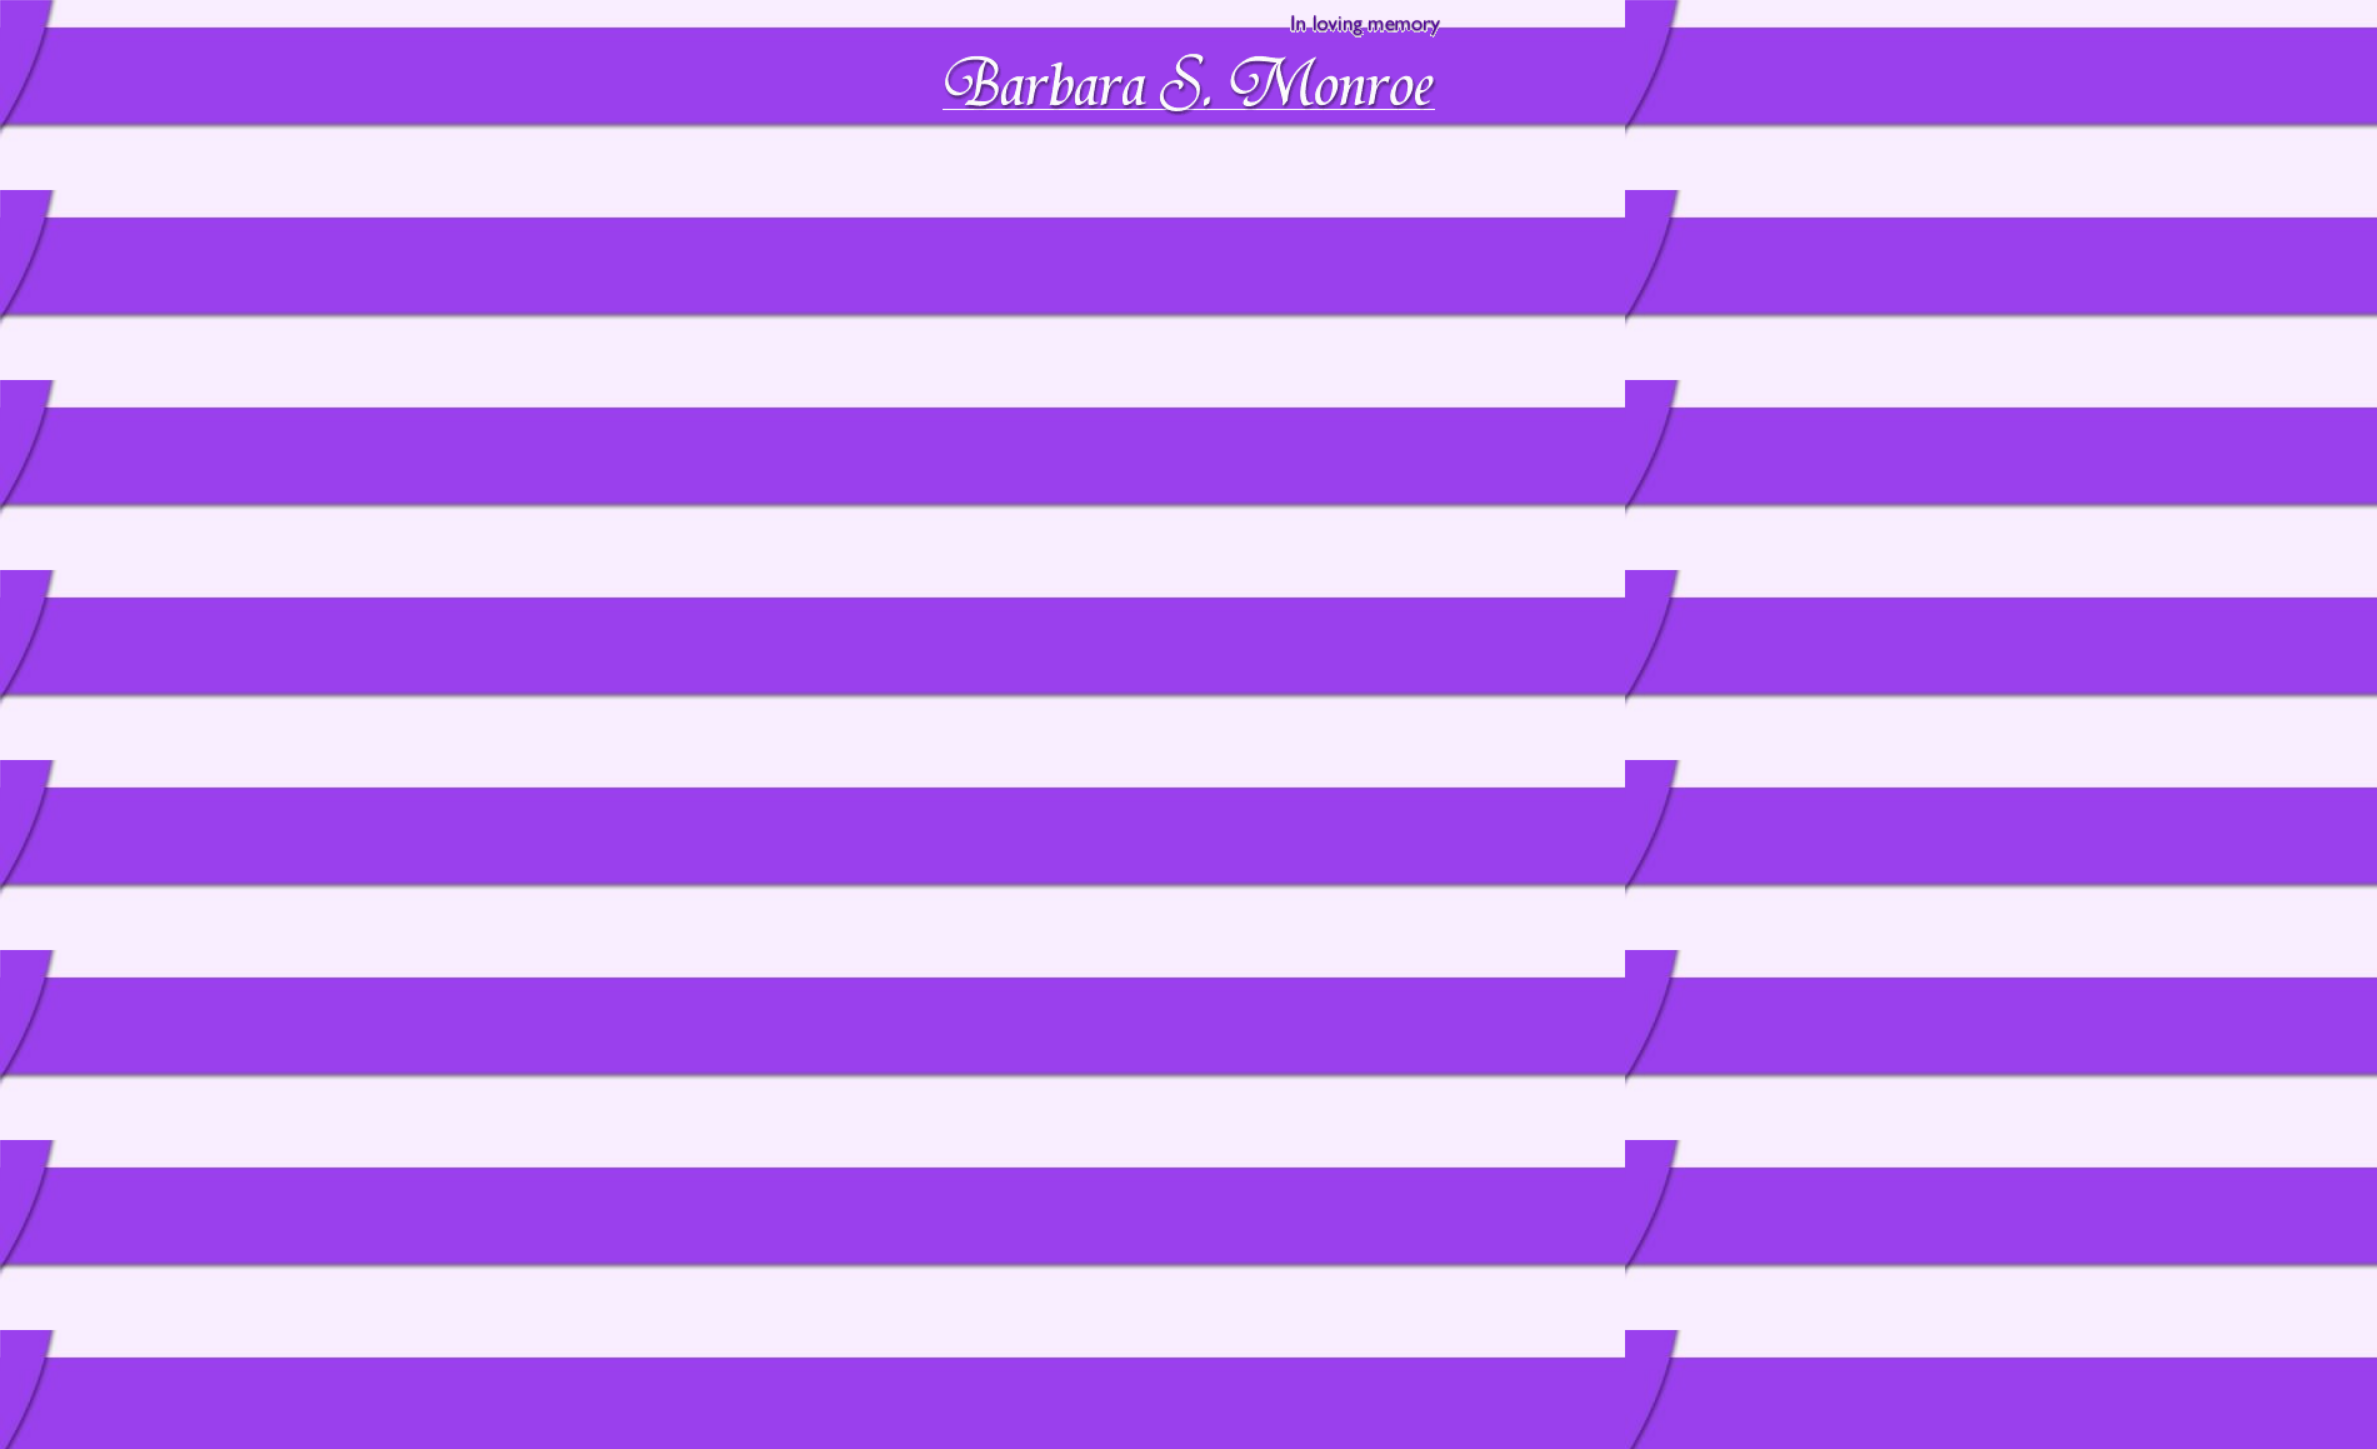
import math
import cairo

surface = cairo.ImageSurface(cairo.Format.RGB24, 2377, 1449)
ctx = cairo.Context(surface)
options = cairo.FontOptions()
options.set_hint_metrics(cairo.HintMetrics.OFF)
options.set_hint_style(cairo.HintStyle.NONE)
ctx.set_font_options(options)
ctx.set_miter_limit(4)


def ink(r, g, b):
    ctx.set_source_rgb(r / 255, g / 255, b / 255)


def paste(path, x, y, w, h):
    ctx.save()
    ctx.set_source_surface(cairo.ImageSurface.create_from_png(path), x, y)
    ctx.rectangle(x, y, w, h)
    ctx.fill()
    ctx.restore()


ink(255, 255, 255)
ctx.paint()
paste("pic1.png", 0, 0, 2377, 1449)
paste("pic2.png", 1289, 14, 153, 24)
paste("pic3.png", 942, 53, 495, 63)
surface.write_to_png("screenshot.png")
